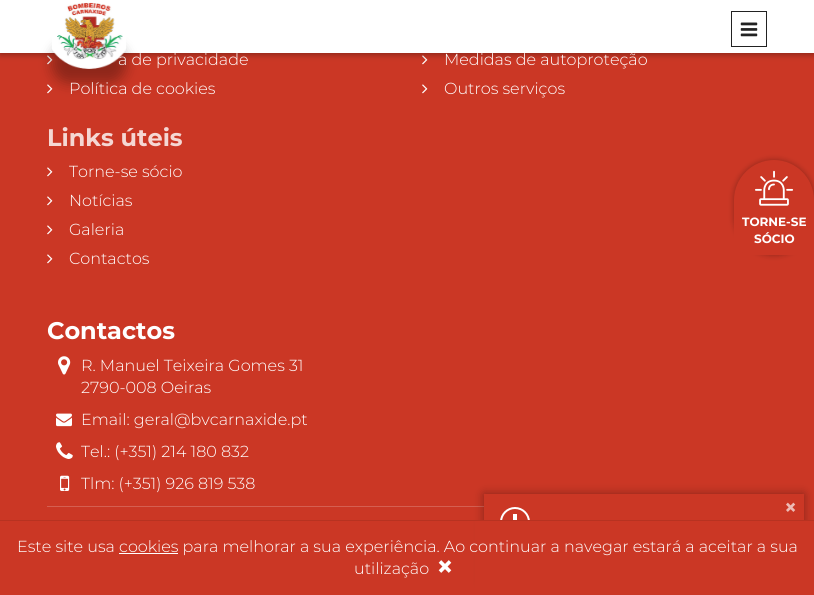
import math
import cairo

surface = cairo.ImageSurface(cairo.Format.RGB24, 814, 595)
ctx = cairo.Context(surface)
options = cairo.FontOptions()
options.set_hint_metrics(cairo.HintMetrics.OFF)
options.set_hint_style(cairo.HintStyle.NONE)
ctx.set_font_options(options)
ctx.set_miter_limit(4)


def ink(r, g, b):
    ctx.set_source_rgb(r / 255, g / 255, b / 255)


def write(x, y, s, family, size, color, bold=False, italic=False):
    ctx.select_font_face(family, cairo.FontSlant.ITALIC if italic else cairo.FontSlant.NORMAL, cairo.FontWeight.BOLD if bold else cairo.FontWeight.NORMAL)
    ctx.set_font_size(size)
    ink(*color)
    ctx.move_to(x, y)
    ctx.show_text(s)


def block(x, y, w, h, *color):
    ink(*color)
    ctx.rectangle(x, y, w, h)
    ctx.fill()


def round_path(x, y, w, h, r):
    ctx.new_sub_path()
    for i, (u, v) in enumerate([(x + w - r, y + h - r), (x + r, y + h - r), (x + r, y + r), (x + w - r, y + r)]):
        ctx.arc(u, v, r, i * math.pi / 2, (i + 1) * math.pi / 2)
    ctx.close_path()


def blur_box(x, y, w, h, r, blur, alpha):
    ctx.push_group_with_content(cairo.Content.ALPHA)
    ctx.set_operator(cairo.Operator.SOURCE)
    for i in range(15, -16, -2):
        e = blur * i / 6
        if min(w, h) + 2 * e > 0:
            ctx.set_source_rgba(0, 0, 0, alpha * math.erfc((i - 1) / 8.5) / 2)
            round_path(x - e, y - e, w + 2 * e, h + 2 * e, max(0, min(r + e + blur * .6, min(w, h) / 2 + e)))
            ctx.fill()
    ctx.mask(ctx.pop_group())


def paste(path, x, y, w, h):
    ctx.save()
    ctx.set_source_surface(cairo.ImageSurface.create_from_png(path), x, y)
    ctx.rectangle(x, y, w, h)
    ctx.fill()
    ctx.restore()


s1 = dict(family="Montserrat Light", size=16, color=(255, 255, 255))
s2 = dict(family="Montserrat", size=24, color=(245, 215, 211), bold=True)
s3 = dict(family="Montserrat", size=24, color=(255, 255, 255), bold=True)
s4 = dict(family="Montserrat", size=12, color=(255, 255, 255), bold=True)
s5 = dict(family="Montserrat", size=22, color=(237, 187, 181), bold=True)
s6 = dict(family="Montserrat", size=30, color=(255, 255, 255), bold=True)

ink(203, 55, 37)
ctx.paint()
paste("pic3.png", 47, 55, 6, 10)
paste("pic3.png", 422, 55, 6, 10)
ink(0, 0, 0)
blur_box(0, -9, 814, 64, 0, 3, 0.3)
block(0, 0, 814, 53, 255, 255, 255)
paste("pic3.png", 47, 84, 6, 10)
ink(0, 0, 0)
blur_box(52, 44, 74, 39, 37, 6.5, 0.3)
write(118, 65, "a de privacidade", **s1)
paste("pic1.png", 52, 2, 74, 67)
ctx.rectangle(731.5, 11.5, 35, 35)
ink(34, 34, 34)
ctx.set_line_width(1)
ctx.stroke()
paste("pic2.png", 740, 22, 18, 15)
write(69, 94, "Política de cookies", **s1)
write(444, 65, "Medidas de autoproteção", **s1)
paste("pic3.png", 422, 84, 6, 10)
write(444, 94, "Outros serviços", **s1)
write(47, 146, "Links úteis", **s2)
paste("pic3.png", 47, 167, 6, 10)
write(69, 177, "Torne-se sócio", **s1)
paste("pic3.png", 47, 196, 6, 10)
write(69, 206, "Notícias", **s1)
paste("pic3.png", 47, 225, 6, 10)
write(69, 235, "Galeria", **s1)
paste("pic3.png", 47, 254, 6, 10)
write(69, 264, "Contactos", **s1)
write(47, 339, "Contactos", **s3)
paste("pic4.png", 58, 356, 13, 19)
write(81, 371, "R. Manuel Teixeira Gomes 31", **s1)
write(81, 393, "2790-008 Oeiras", **s1)
paste("pic5.png", 56, 413, 16, 14)
write(81, 425, "Email: geral@bvcarnaxide.pt", **s1)
paste("pic6.png", 56, 442, 17, 17)
write(81, 457, "Tel.: (+351) 214 180 832", **s1)
paste("pic7.png", 60, 475, 10, 16)
write(81, 489, "Tlm: (+351) 926 819 538", **s1)
block(47, 506, 437, 1, 213, 95, 81)
ink(0, 0, 0)
blur_box(734, 160, 80, 95, 40, 3, 0.3)
ink(203, 55, 37)
ctx.new_path()
ctx.move_to(774, 160)
ctx.curve_to(796, 160, 814, 178, 814, 200)
ctx.line_to(814, 255)
ctx.line_to(752, 255)
ctx.curve_to(742, 255, 734, 247, 734, 237)
ctx.line_to(734, 200)
ctx.curve_to(734, 178, 752, 160, 774, 160)
ctx.close_path()
ctx.fill()
paste("pic8.png", 755, 170, 39, 36)
write(742, 226, "TORNE-SE", **s4)
write(754, 243, "SÓCIO", **s4)
ink(0, 0, 0)
blur_box(484, 494, 320, 91, 0, 5, 0.33)
block(484, 494, 320, 26, 203, 55, 37)
ctx.arc(515, 522, 14, 0, 2 * math.pi)
ink(255, 255, 255)
ctx.set_line_width(2)
ctx.stroke()
block(513, 514, 4, 9, 255, 255, 255)
write(784, 515, "×", **s5)
block(475, 521, 338, 73, 203, 55, 37)
block(0, 520, 814, 1, 183, 50, 33)
write(17, 552, "Este site usa cookies para melhorar a sua experiência. Ao continuar a navegar estará a aceitar a sua", **s1)
block(119, 553, 59, 1, 255, 255, 255)
write(354, 574, "utilização", **s1)
write(436, 577, "×", **s6)
surface.write_to_png("screenshot.png")
